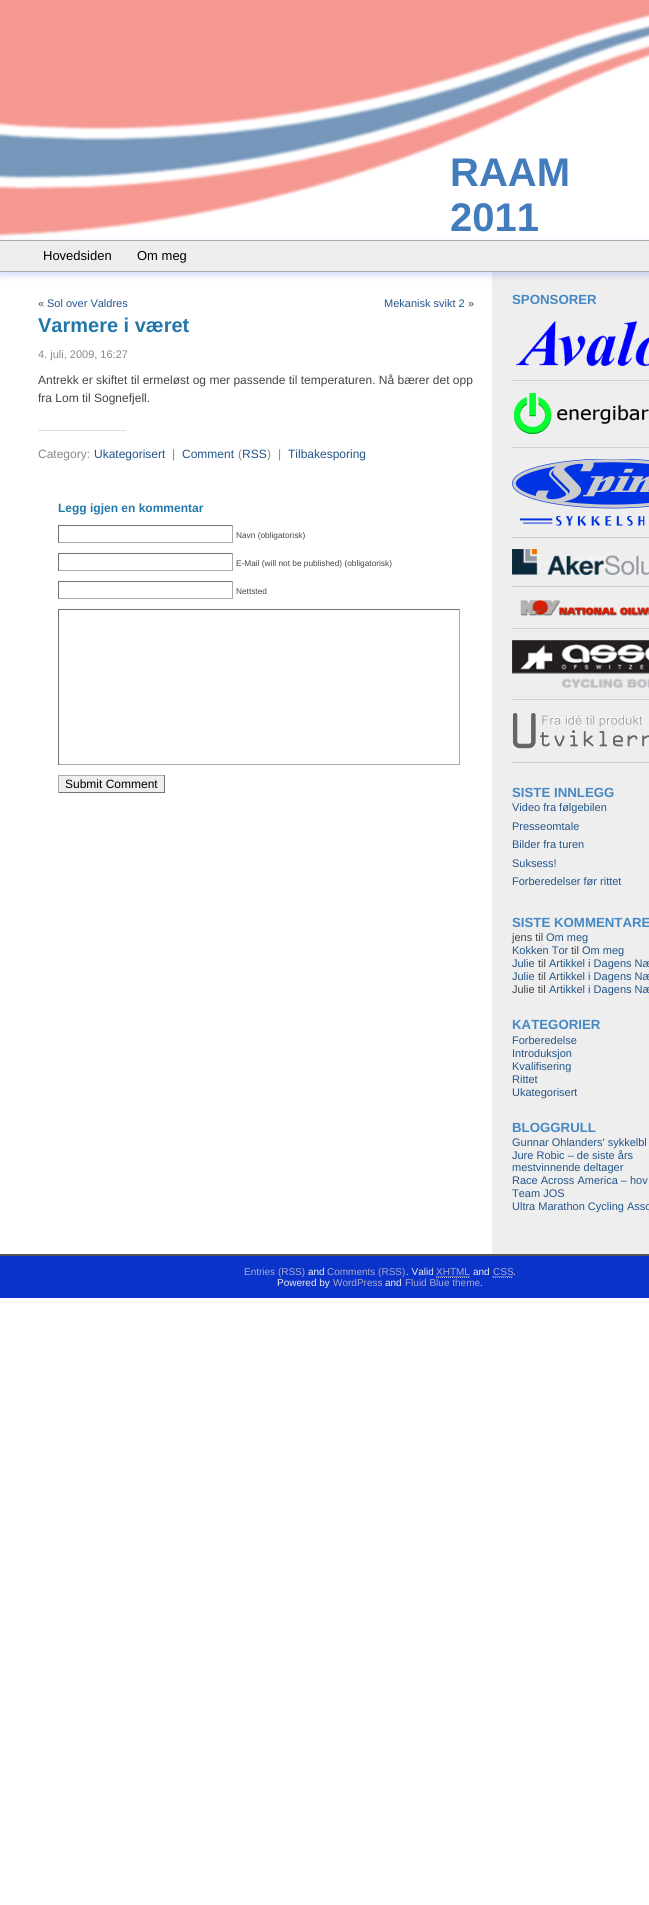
import math
import cairo

surface = cairo.ImageSurface(cairo.Format.RGB24, 649, 1905)
ctx = cairo.Context(surface)
options = cairo.FontOptions()
options.set_hint_metrics(cairo.HintMetrics.OFF)
options.set_hint_style(cairo.HintStyle.NONE)
ctx.set_font_options(options)
ctx.set_miter_limit(4)


def ink(r, g, b):
    ctx.set_source_rgb(r / 255, g / 255, b / 255)


def write(x, y, s, family, size, color, bold=False, italic=False):
    ctx.select_font_face(family, cairo.FontSlant.ITALIC if italic else cairo.FontSlant.NORMAL, cairo.FontWeight.BOLD if bold else cairo.FontWeight.NORMAL)
    ctx.set_font_size(size)
    ink(*color)
    ctx.move_to(x, y)
    ctx.show_text(s)


def block(x, y, w, h, *color):
    ink(*color)
    ctx.rectangle(x, y, w, h)
    ctx.fill()


def round_path(x, y, w, h, r):
    ctx.new_sub_path()
    for i, (u, v) in enumerate([(x + w - r, y + h - r), (x + r, y + h - r), (x + r, y + r), (x + w - r, y + r)]):
        ctx.arc(u, v, r, i * math.pi / 2, (i + 1) * math.pi / 2)
    ctx.close_path()


def blur_box(x, y, w, h, r, blur, alpha):
    ctx.push_group_with_content(cairo.Content.ALPHA)
    ctx.set_operator(cairo.Operator.SOURCE)
    for i in range(15, -16, -2):
        e = blur * i / 6
        if min(w, h) + 2 * e > 0:
            ctx.set_source_rgba(0, 0, 0, alpha * math.erfc((i - 1) / 8.5) / 2)
            round_path(x - e, y - e, w + 2 * e, h + 2 * e, max(0, min(r + e + blur * .6, min(w, h) / 2 + e)))
            ctx.fill()
    ctx.mask(ctx.pop_group())


def paste(path, x, y, w, h):
    ctx.save()
    ctx.set_source_surface(cairo.ImageSurface.create_from_png(path), x, y)
    ctx.rectangle(x, y, w, h)
    ctx.fill()
    ctx.restore()


s1 = dict(family="Liberation Sans", size=40, color=(67, 124, 189), bold=True)
s2 = dict(family="Liberation Sans", size=13, color=(0, 0, 0))
s3 = dict(family="Liberation Sans", size=11, color=(68, 68, 68))
s4 = dict(family="Liberation Sans", size=11, color=(34, 85, 136))
s5 = dict(family="Liberation Sans", size=20, color=(34, 119, 170), bold=True)
s6 = dict(family="Liberation Sans", size=11, color=(136, 136, 136))
s7 = dict(family="Liberation Sans", size=12, color=(68, 68, 68))
s8 = dict(family="Liberation Sans", size=12, color=(136, 136, 136))
s9 = dict(family="Liberation Sans", size=12, color=(34, 85, 136))
s10 = dict(family="Liberation Sans", size=12, color=(34, 119, 170), bold=True)
s11 = dict(family="Liberation Sans", size=8.3, color=(68, 68, 68))
s12 = dict(family="Liberation Sans", size=12, color=(0, 0, 0))
s13 = dict(family="Liberation Sans", size=13.25, color=(69, 136, 196), bold=True)
s14 = dict(family="Liberation Sans", size=10, color=(170, 170, 204))
s15 = dict(family="Liberation Sans", size=10, color=(238, 238, 238))

ink(255, 255, 255)
ctx.paint()
paste("pic1.png", 0, 0, 649, 237)
write(450, 186, "RAAM", **s1)
write(450, 231, "2011", **s1)
block(492, 272, 157, 982, 238, 238, 238)
ink(17, 65, 245)
blur_box(0, 243, 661, 32, 0, 4, 0.2)
block(0, 241, 649, 30, 238, 238, 238)
block(0, 240, 649, 1, 170, 170, 170)
block(0, 271, 649, 1, 170, 170, 170)
write(43, 260, "Hovedsiden", **s2)
write(137, 260, "Om meg", **s2)
write(38, 307, "«", **s3)
write(47, 307, "Sol over Valdres", **s4)
write(384, 307, "Mekanisk svikt 2", **s4)
write(468, 307, "»", **s3)
write(38, 332, "Varmere i været", **s5)
write(38, 358, "4. juli, 2009, 16:27", **s6)
write(38, 384, "Antrekk er skiftet til ermeløst og mer passende til temperaturen. Nå bærer det opp", **s7)
write(38, 402, "fra Lom til Sognefjell.", **s7)
block(38, 430, 88, 1, 221, 221, 221)
write(38, 458, "Category:", **s8)
write(94, 458, "Ukategorisert", **s9)
write(172, 458, "|", **s8)
write(182, 458, "Comment", **s9)
write(238, 458, "(", **s8)
write(242, 458, "RSS", **s9)
write(267, 458, ")", **s8)
write(278, 458, "|", **s8)
write(288, 458, "Tilbakesporing", **s9)
write(58, 512, "Legg igjen en kommentar", **s10)
block(58, 525, 175, 1, 113, 113, 113)
block(232, 525, 1, 18, 170, 170, 170)
block(58, 542, 175, 1, 170, 170, 170)
block(58, 525, 1, 18, 113, 113, 113)
write(236, 538, "Navn (obligatorisk)", **s11)
block(58, 553, 175, 1, 113, 113, 113)
block(232, 553, 1, 18, 170, 170, 170)
block(58, 570, 175, 1, 170, 170, 170)
block(58, 553, 1, 18, 113, 113, 113)
write(236, 566, "E-Mail (will not be published) (obligatorisk)", **s11)
block(58, 581, 175, 1, 113, 113, 113)
block(232, 581, 1, 18, 170, 170, 170)
block(58, 598, 175, 1, 170, 170, 170)
block(58, 581, 1, 18, 113, 113, 113)
write(236, 594, "Nettsted", **s11)
block(58, 609, 402, 1, 113, 113, 113)
block(459, 609, 1, 156, 170, 170, 170)
block(58, 764, 402, 1, 170, 170, 170)
block(58, 609, 1, 156, 113, 113, 113)
block(59, 776, 105, 16, 238, 238, 238)
block(58, 775, 107, 1, 170, 170, 170)
block(164, 775, 1, 18, 113, 113, 113)
block(58, 792, 107, 1, 113, 113, 113)
block(58, 775, 1, 18, 170, 170, 170)
write(65, 788, "Submit Comment", **s12)
write(512, 304, "SPONSORER", **s13)
block(512, 380, 137, 1, 208, 208, 208)
paste("pic2.png", 515, 321, 134, 45)
block(512, 447, 137, 1, 208, 208, 208)
paste("pic3.png", 514, 393, 135, 41)
block(512, 537, 137, 1, 208, 208, 208)
paste("pic4.png", 512, 459, 137, 67)
block(512, 586, 137, 1, 208, 208, 208)
paste("pic5.png", 512, 549, 137, 26)
block(512, 628, 137, 1, 208, 208, 208)
paste("pic6.png", 520, 600, 129, 16)
block(512, 699, 137, 1, 208, 208, 208)
paste("pic7.png", 512, 640, 137, 48)
block(512, 762, 137, 1, 208, 208, 208)
paste("pic8.png", 512, 712, 137, 37)
write(512, 797, "SISTE INNLEGG", **s13)
write(512, 811, "Video fra følgebilen", **s4)
write(512, 830, "Presseomtale", **s4)
write(512, 848, "Bilder fra turen", **s4)
write(512, 867, "Suksess!", **s4)
write(512, 885, "Forberedelser før rittet", **s4)
write(512, 927, "SISTE KOMMENTARE", **s13)
write(512, 941, "jens til", **s3)
write(546, 941, "Om meg", **s4)
write(512, 954, "Kokken Tor", **s4)
write(571, 954, "til", **s3)
write(582, 954, "Om meg", **s4)
write(512, 967, "Julie", **s4)
write(538, 967, "til", **s3)
write(549, 967, "Artikkel i Dagens Næ", **s4)
write(512, 980, "Julie", **s4)
write(538, 980, "til", **s3)
write(549, 980, "Artikkel i Dagens Næ", **s4)
write(512, 993, "Julie til", **s3)
write(549, 993, "Artikkel i Dagens Næ", **s4)
write(512, 1029, "KATEGORIER", **s13)
write(512, 1044, "Forberedelse", **s4)
write(512, 1057, "Introduksjon", **s4)
write(512, 1070, "Kvalifisering", **s4)
write(512, 1083, "Rittet", **s4)
write(512, 1096, "Ukategorisert", **s4)
write(512, 1132, "BLOGGRULL", **s13)
write(512, 1146, "Gunnar Ohlanders' sykkelbl", **s4)
write(512, 1159, "Jure Robic – de siste års", **s4)
write(512, 1171, "mestvinnende deltager", **s4)
write(512, 1184, "Race Across America – hov", **s4)
write(512, 1197, "Team JOS", **s4)
write(512, 1210, "Ultra Marathon Cycling Asso", **s4)
block(0, 1256, 649, 42, 10, 51, 202)
block(0, 1254, 649, 2, 85, 85, 85)
write(244, 1275, "Entries (RSS)", **s14)
write(308, 1275, "and", **s15)
write(327, 1275, "Comments (RSS)", **s14)
write(406, 1275, ". Valid", **s15)
write(436, 1275, "XHTML", **s14)
ctx.new_path()
ctx.move_to(436, 1277.5)
ctx.line_to(470, 1277.5)
ctx.move_to(436.5, 1276.5)
ctx.line_to(470.5, 1276.5)
ctx.set_line_width(1)
ctx.set_dash([1, 1])
ctx.stroke()
write(473, 1275, "and", **s15)
write(493, 1275, "CSS", **s14)
ctx.new_path()
ctx.move_to(493, 1277.5)
ctx.line_to(513, 1277.5)
ctx.move_to(492.5, 1276.5)
ctx.line_to(513, 1276.5)
ctx.stroke()
write(513, 1275, ".", **s15)
write(277, 1286, "Powered by", **s15)
write(333, 1286, "WordPress", **s14)
write(385, 1286, "and", **s15)
write(405, 1286, "Fluid Blue theme", **s14)
write(480, 1286, ".", **s15)
surface.write_to_png("screenshot.png")
